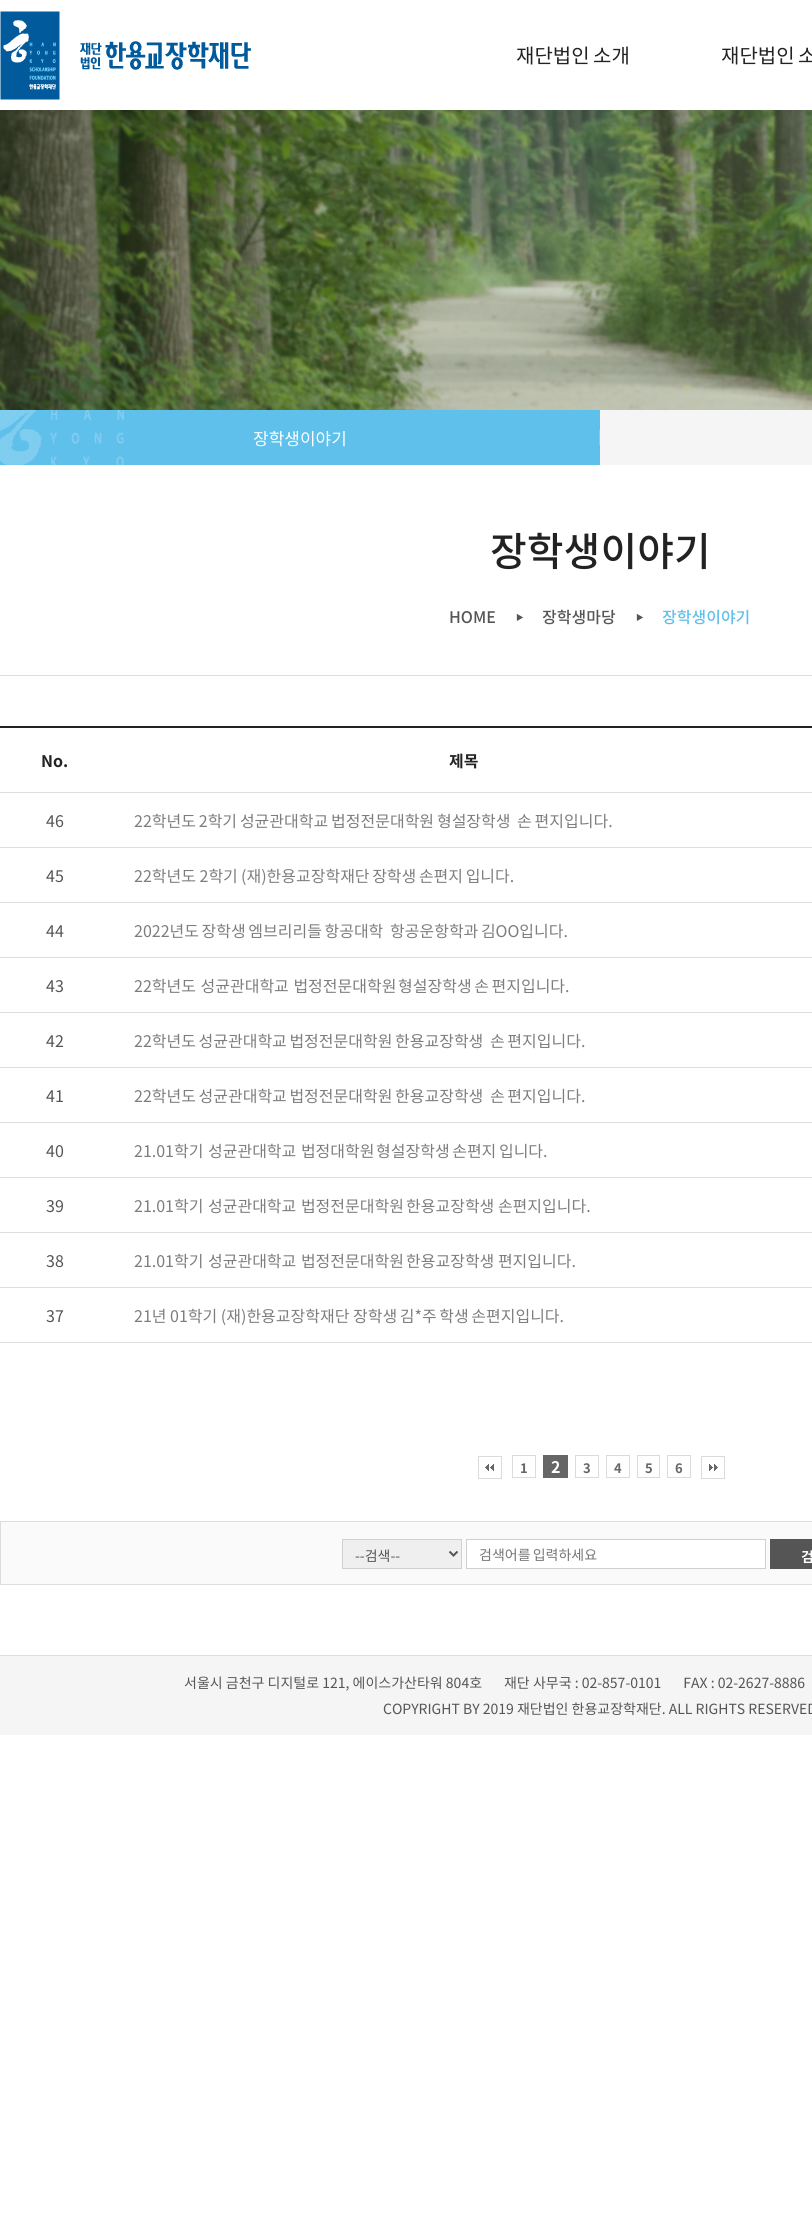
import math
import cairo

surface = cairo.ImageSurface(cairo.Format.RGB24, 812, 2233)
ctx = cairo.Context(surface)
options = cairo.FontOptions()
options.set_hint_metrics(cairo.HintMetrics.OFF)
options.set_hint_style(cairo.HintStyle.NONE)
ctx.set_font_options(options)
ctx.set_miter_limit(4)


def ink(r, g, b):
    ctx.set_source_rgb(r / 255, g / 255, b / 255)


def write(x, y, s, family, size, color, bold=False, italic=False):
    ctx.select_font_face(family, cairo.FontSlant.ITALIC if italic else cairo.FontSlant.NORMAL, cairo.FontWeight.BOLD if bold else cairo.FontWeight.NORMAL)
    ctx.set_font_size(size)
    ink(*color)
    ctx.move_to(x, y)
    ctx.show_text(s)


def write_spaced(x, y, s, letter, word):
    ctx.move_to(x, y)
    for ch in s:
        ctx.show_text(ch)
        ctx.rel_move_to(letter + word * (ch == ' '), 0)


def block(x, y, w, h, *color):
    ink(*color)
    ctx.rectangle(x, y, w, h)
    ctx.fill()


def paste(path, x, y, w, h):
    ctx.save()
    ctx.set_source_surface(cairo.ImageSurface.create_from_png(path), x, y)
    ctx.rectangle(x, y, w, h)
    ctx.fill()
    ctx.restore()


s1 = dict(family="Noto Sans KR", size=17, color=(255, 255, 255))
s2 = dict(family="Noto Sans KR Medium", size=40, color=(34, 34, 34))
s3 = dict(family="Noto Sans KR Medium", size=16, color=(85, 85, 85))
s4 = dict(family="Noto Sans KR Medium", size=16, color=(95, 192, 235))
s5 = dict(family="Noto Sans KR", size=16, color=(34, 34, 34), bold=True)
s6 = dict(family="Noto Sans KR", size=16, color=(85, 85, 85))
s7 = dict(family="Noto Sans KR", size=16, color=(125, 125, 125))
s8 = dict(family="Noto Sans KR", size=13, color=(102, 102, 102), bold=True)
s9 = dict(family="Noto Sans KR", size=16, color=(255, 255, 255), bold=True)
s10 = dict(family="Noto Sans KR", size=14, color=(85, 85, 85))
s11 = dict(family="Noto Sans KR", size=14, color=(255, 255, 255), bold=True)

ink(255, 255, 255)
ctx.paint()
paste("pic1.png", 0, 11, 251, 89)
ctx.select_font_face("Noto Sans KR")
ctx.set_font_size(20)
ink(34, 34, 34)
write_spaced(516, 63, "재단법인 소개", 0, -1)
write_spaced(721, 63, "재단법인 소", 0, -1)
paste("pic2.png", 0, 110, 812, 300)
block(600, 410, 212, 55, 245, 245, 245)
block(124, 410, 476, 55, 95, 192, 235)
paste("pic3.png", 0, 410, 124, 55)
write(253, 445, "장학생이야기", **s1)
block(599, 430, 1, 15, 187, 187, 187)
block(0, 675, 812, 1, 221, 221, 221)
write(490, 566, "장학생이야기", **s2)
write(449, 623, "HOME", **s3)
paste("pic4.png", 516, 614, 7, 7)
write(542, 623, "장학생마당", **s3)
paste("pic4.png", 636, 614, 7, 7)
write(662, 623, "장학생이야기", **s4)
block(0, 1342, 812, 1, 221, 221, 221)
block(0, 726, 812, 2, 34, 34, 34)
write(41, 767, "No.", **s5)
block(0, 792, 812, 1, 221, 221, 221)
write(449, 767, "제목", **s5)
write(46, 827, "46", **s6)
block(0, 847, 812, 1, 221, 221, 221)
ink(125, 125, 125)
write_spaced(134, 827, "22학년도 2학기 성균관대학교 법정전문대학원 형설장학생", 0, -0.75)
write_spaced(517, 827, "손 편지입니다.", 0, -0.75)
write(46, 882, "45", **s6)
block(0, 902, 812, 1, 221, 221, 221)
write(134, 882, "22학년도 2학기", **s7)
write_spaced(241, 882, "(재)한용교장학재단 장학생 손편지 입니다.", 0, -1)
write(46, 937, "44", **s6)
block(0, 957, 812, 1, 221, 221, 221)
ink(125, 125, 125)
write_spaced(134, 937, "2022년도 장학생 엠브리리들 항공대학", 0, -1)
write_spaced(390, 937, "항공운항학과 김OO입니다.", 0, -1)
write(46, 992, "43", **s6)
block(0, 1012, 812, 1, 221, 221, 221)
ink(125, 125, 125)
write_spaced(134, 992, "22학년도 성균관대학교 법정전문대학원", 0, 1)
write_spaced(398, 992, "형설장학생 손 편지입니다.", 0, -1)
write(46, 1047, "42", **s6)
block(0, 1067, 812, 1, 221, 221, 221)
ink(125, 125, 125)
write_spaced(134, 1047, "22학년도 성균관대학교 법정전문대학원 한용교장학생", 0, -1)
write_spaced(490, 1047, "손 편지입니다.", 0, -1)
write(46, 1102, "41", **s6)
block(0, 1122, 812, 1, 221, 221, 221)
ink(125, 125, 125)
write_spaced(134, 1102, "22학년도 성균관대학교 법정전문대학원 한용교장학생", 0, -1)
write_spaced(490, 1102, "손 편지입니다.", 0, -1)
write(46, 1157, "40", **s6)
block(0, 1177, 812, 1, 221, 221, 221)
ink(125, 125, 125)
write_spaced(134, 1157, "21.01학기 성균관대학교 법정대학원", 0, 1)
write_spaced(376, 1157, "형설장학생 손편지 입니다.", 0, -1)
write(46, 1212, "39", **s6)
block(0, 1232, 812, 1, 221, 221, 221)
ink(125, 125, 125)
write_spaced(134, 1212, "21.01학기 성균관대학교 법정전문대학원", 0, 1)
write(406, 1212, "한용교장학생 손편지입니다.", **s7)
write(46, 1267, "38", **s6)
block(0, 1287, 812, 1, 221, 221, 221)
ink(125, 125, 125)
write_spaced(134, 1267, "21.01학기 성균관대학교 법정전문대학원", 0, 1)
write(406, 1267, "한용교장학생 편지입니다.", **s7)
write(46, 1322, "37", **s6)
write(134, 1322, "21년 01학기 (재)한용교장학재단", **s7)
write_spaced(353, 1322, "장학생 김*주 학생 손편지입니다.", 0, -1)
paste("pic5.png", 478, 1456, 24, 23)
ctx.rectangle(512.5, 1455.5, 23, 22)
ink(219, 219, 219)
ctx.set_line_width(1)
ctx.stroke()
write(520, 1473, "1", **s8)
block(543, 1455, 25, 23, 102, 102, 102)
write(551, 1473, "2", **s9)
ctx.rectangle(575.5, 1455.5, 23, 22)
ink(219, 219, 219)
ctx.stroke()
write(583, 1473, "3", **s8)
ctx.rectangle(606.5, 1455.5, 23, 22)
ink(219, 219, 219)
ctx.stroke()
write(614, 1473, "4", **s8)
ctx.rectangle(637.5, 1455.5, 22, 22)
ink(219, 219, 219)
ctx.stroke()
write(645, 1473, "5", **s8)
ctx.rectangle(667.5, 1455.5, 23, 22)
ink(219, 219, 219)
ctx.stroke()
write(675, 1473, "6", **s8)
paste("pic6.png", 701, 1456, 24, 23)
ink(250, 250, 250)
ctx.rectangle(0.5, 1521.5, 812, 63)
ctx.fill_preserve()
ink(221, 221, 221)
ctx.stroke()
ink(239, 239, 239)
ctx.rectangle(342.5, 1539.5, 119, 29)
ctx.fill_preserve()
ink(208, 208, 208)
ctx.stroke()
ctx.new_path()
ctx.move_to(449.5, 1551.5)
ctx.line_to(453.5, 1555.5)
ctx.line_to(457.5, 1551.5)
ink(85, 85, 85)
ctx.set_line_width(2)
ctx.stroke()
write(355, 1561, "--검색--", **s10)
ink(255, 255, 255)
ctx.rectangle(466.5, 1539.5, 299, 29)
ctx.fill_preserve()
ink(208, 208, 208)
ctx.set_line_width(1)
ctx.stroke()
ink(117, 117, 117)
write_spaced(479, 1560, "검색어를 입력하세요", 0, -1)
block(770, 1539, 42, 30, 85, 85, 85)
write(801, 1562, "검", **s11)
block(0, 1656, 812, 79, 245, 245, 245)
block(0, 1655, 812, 1, 221, 221, 221)
write(184, 1688, "서울시 금천구 디지털로 121, 에이스가산타워 804호       재단 사무국 : 02-857-0101       FAX : 02-2627-8886", **s10)
write(383, 1714, "COPYRIGHT BY 2019 재단법인 한용교장학재단. ALL RIGHTS RESERVED", **s10)
surface.write_to_png("screenshot.png")
